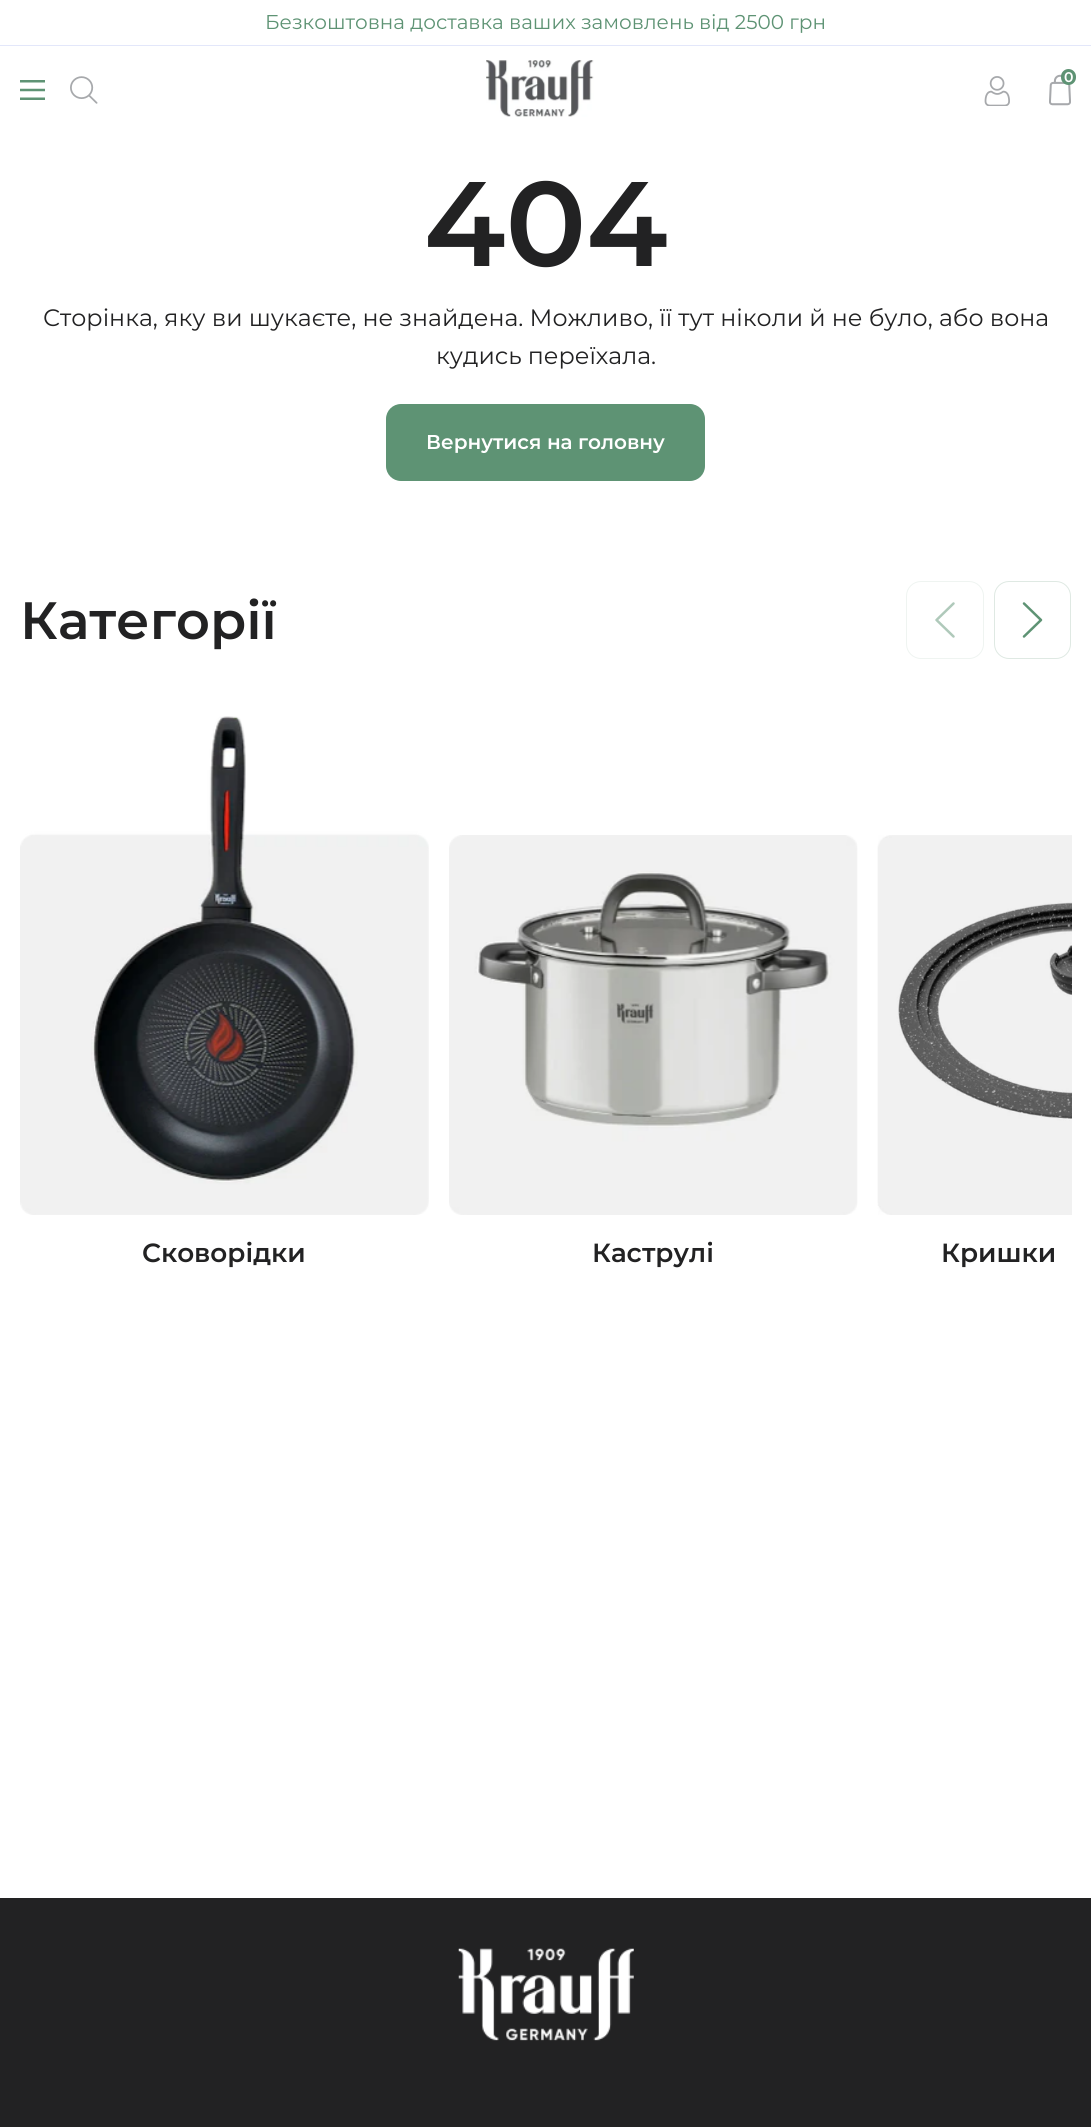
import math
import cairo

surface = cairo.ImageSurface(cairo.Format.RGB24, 1091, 2127)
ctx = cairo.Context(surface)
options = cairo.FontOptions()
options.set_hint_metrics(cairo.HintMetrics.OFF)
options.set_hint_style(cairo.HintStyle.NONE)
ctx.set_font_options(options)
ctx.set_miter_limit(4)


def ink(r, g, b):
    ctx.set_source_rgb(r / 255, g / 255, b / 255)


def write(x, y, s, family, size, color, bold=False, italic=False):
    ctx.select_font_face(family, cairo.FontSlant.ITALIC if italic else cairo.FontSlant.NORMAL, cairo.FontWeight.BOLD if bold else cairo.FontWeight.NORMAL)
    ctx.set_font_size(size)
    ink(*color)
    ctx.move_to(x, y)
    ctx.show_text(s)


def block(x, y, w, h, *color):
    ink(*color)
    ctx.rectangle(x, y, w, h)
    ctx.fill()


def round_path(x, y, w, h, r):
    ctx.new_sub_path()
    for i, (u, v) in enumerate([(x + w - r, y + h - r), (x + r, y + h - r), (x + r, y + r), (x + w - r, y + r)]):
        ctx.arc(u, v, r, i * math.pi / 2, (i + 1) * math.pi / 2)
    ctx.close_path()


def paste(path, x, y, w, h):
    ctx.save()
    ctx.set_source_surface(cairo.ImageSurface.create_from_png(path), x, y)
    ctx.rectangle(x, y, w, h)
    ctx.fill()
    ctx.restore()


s1 = dict(family="Montserrat", size=20, color=(94, 147, 116))
s2 = dict(family="Montserrat SemiBold", size=14, color=(255, 255, 255))
s3 = dict(family="Montserrat SemiBold", size=120, color=(34, 34, 35))
s4 = dict(family="Montserrat", size=23.75, color=(34, 34, 35))
s5 = dict(family="Montserrat SemiBold", size=20, color=(255, 255, 255))
s6 = dict(family="Montserrat SemiBold", size=52.5, color=(34, 34, 35))
s7 = dict(family="Montserrat SemiBold", size=26.25, color=(34, 34, 35))

ink(255, 255, 255)
ctx.paint()
block(0, 45, 1091, 1, 227, 231, 250)
write(265, 29, "Безкоштовна доставка ваших замовлень від 2500 грн", **s1)
paste("pic1.png", 20, 80, 25, 20)
paste("pic2.png", 70, 76, 28, 28)
paste("pic3.png", 486, 60, 108, 57)
paste("pic4.png", 984, 76, 26, 30)
paste("pic5.png", 1049, 74, 22, 32)
round_path(1061, 69, 15, 16, 7.5)
ctx.fill()
write(1064, 82, "0", **s2)
write(424, 266, "404", **s3)
write(43, 326, "Сторінка, яку ви шукаєте, не знайдена. Можливо, її тут ніколи й не було, або вона", **s4)
write(436, 364, "кудись переїхала.", **s4)
ink(94, 147, 116)
round_path(386, 404, 319, 77, 15)
ctx.fill()
write(426, 449, "Вернутися на головну", **s5)
write(20, 639, "Категорії", **s6)
round_path(906.5, 581.5, 77, 77, 14.5)
ink(239, 244, 241)
ctx.set_line_width(1)
ctx.stroke()
ctx.new_path()
ctx.move_to(953.5, 603.5)
ctx.line_to(936.5, 620)
ctx.line_to(953.5, 636.5)
ink(175, 201, 186)
ctx.set_line_width(2.5)
ctx.set_line_cap(cairo.LineCap.ROUND)
ctx.set_line_join(cairo.LineJoin.ROUND)
ctx.stroke()
round_path(994.5, 581.5, 76, 77, 14.5)
ink(223, 233, 227)
ctx.set_line_width(1)
ctx.set_line_cap(cairo.LineCap.BUTT)
ctx.set_line_join(cairo.LineJoin.MITER)
ctx.stroke()
ctx.new_path()
ctx.move_to(1024, 636.5)
ctx.line_to(1041, 620)
ctx.line_to(1024, 603.5)
ink(94, 147, 116)
ctx.set_line_width(2.5)
ctx.set_line_cap(cairo.LineCap.ROUND)
ctx.set_line_join(cairo.LineJoin.ROUND)
ctx.stroke()
paste("pic6.png", 20, 716, 409, 499)
write(142, 1262, "Сковорідки", **s7)
paste("pic7.png", 449, 835, 409, 380)
write(592, 1262, "Каструлі", **s7)
paste("pic8.png", 877, 835, 195, 380)
write(941, 1262, "Кришки", **s7)
block(0, 1898, 1091, 229, 34, 34, 35)
paste("pic9.png", 458, 1948, 176, 93)
surface.write_to_png("screenshot.png")
